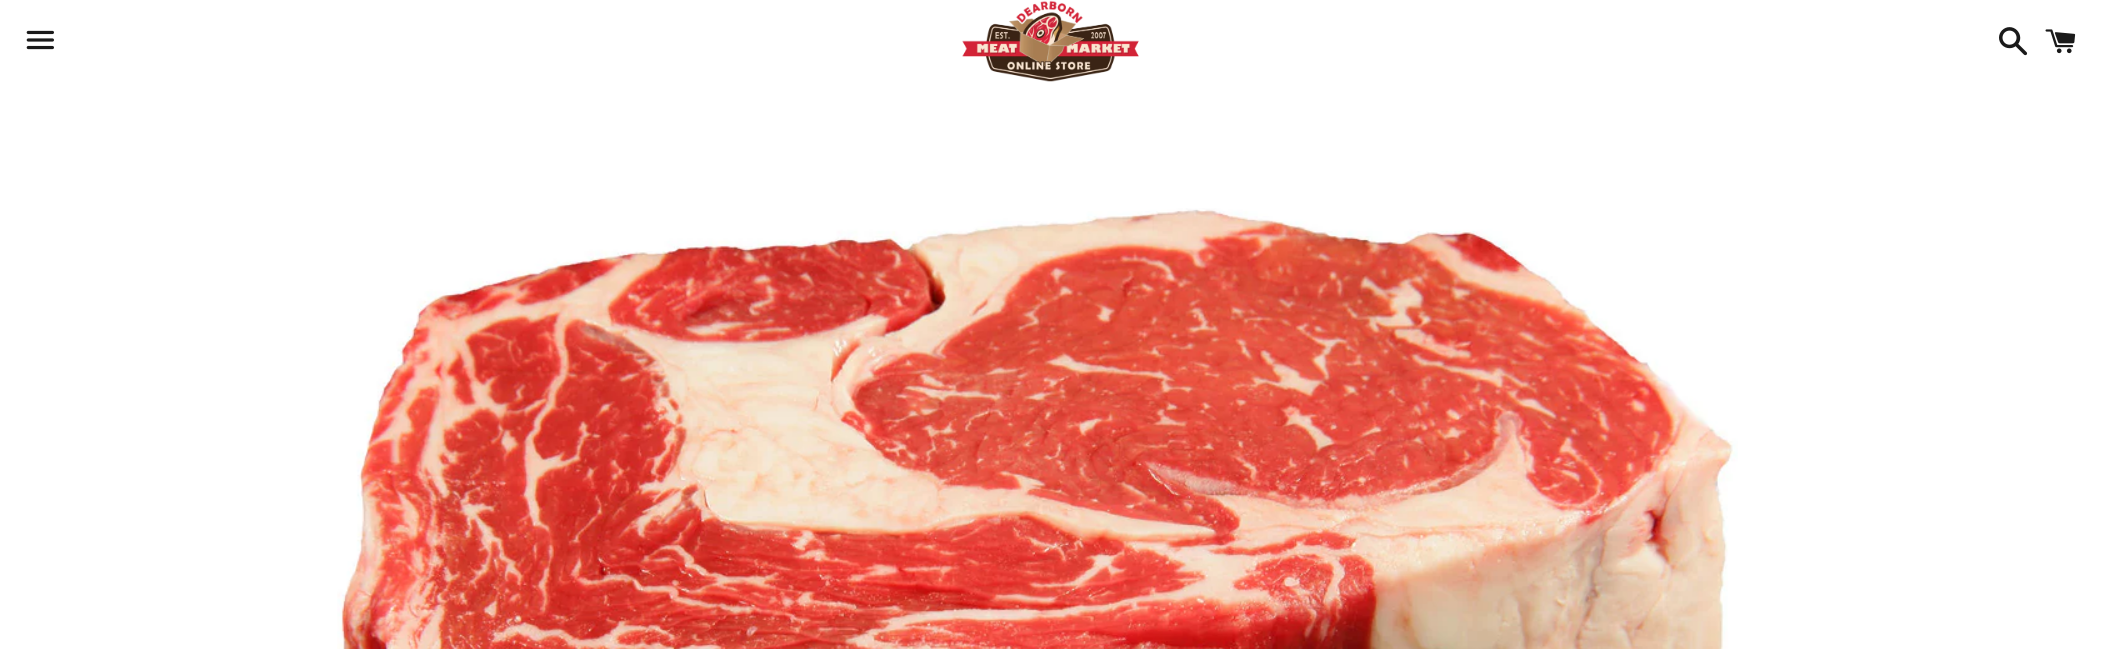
import math
import cairo

surface = cairo.ImageSurface(cairo.Format.RGB24, 2101, 649)
ctx = cairo.Context(surface)
options = cairo.FontOptions()
options.set_hint_metrics(cairo.HintMetrics.OFF)
options.set_hint_style(cairo.HintStyle.NONE)
ctx.set_font_options(options)
ctx.set_miter_limit(4)


def ink(r, g, b):
    ctx.set_source_rgb(r / 255, g / 255, b / 255)


def paste(path, x, y, w, h):
    ctx.save()
    ctx.set_source_surface(cairo.ImageSurface.create_from_png(path), x, y)
    ctx.rectangle(x, y, w, h)
    ctx.fill()
    ctx.restore()


ink(255, 255, 255)
ctx.paint()
paste("pic1.png", 26, 30, 28, 20)
paste("pic2.png", 962, 0, 177, 82)
paste("pic3.png", 1999, 27, 29, 29)
paste("pic4.png", 2045, 29, 31, 25)
paste("pic5.png", 337, 208, 1401, 441)
surface.write_to_png("screenshot.png")
